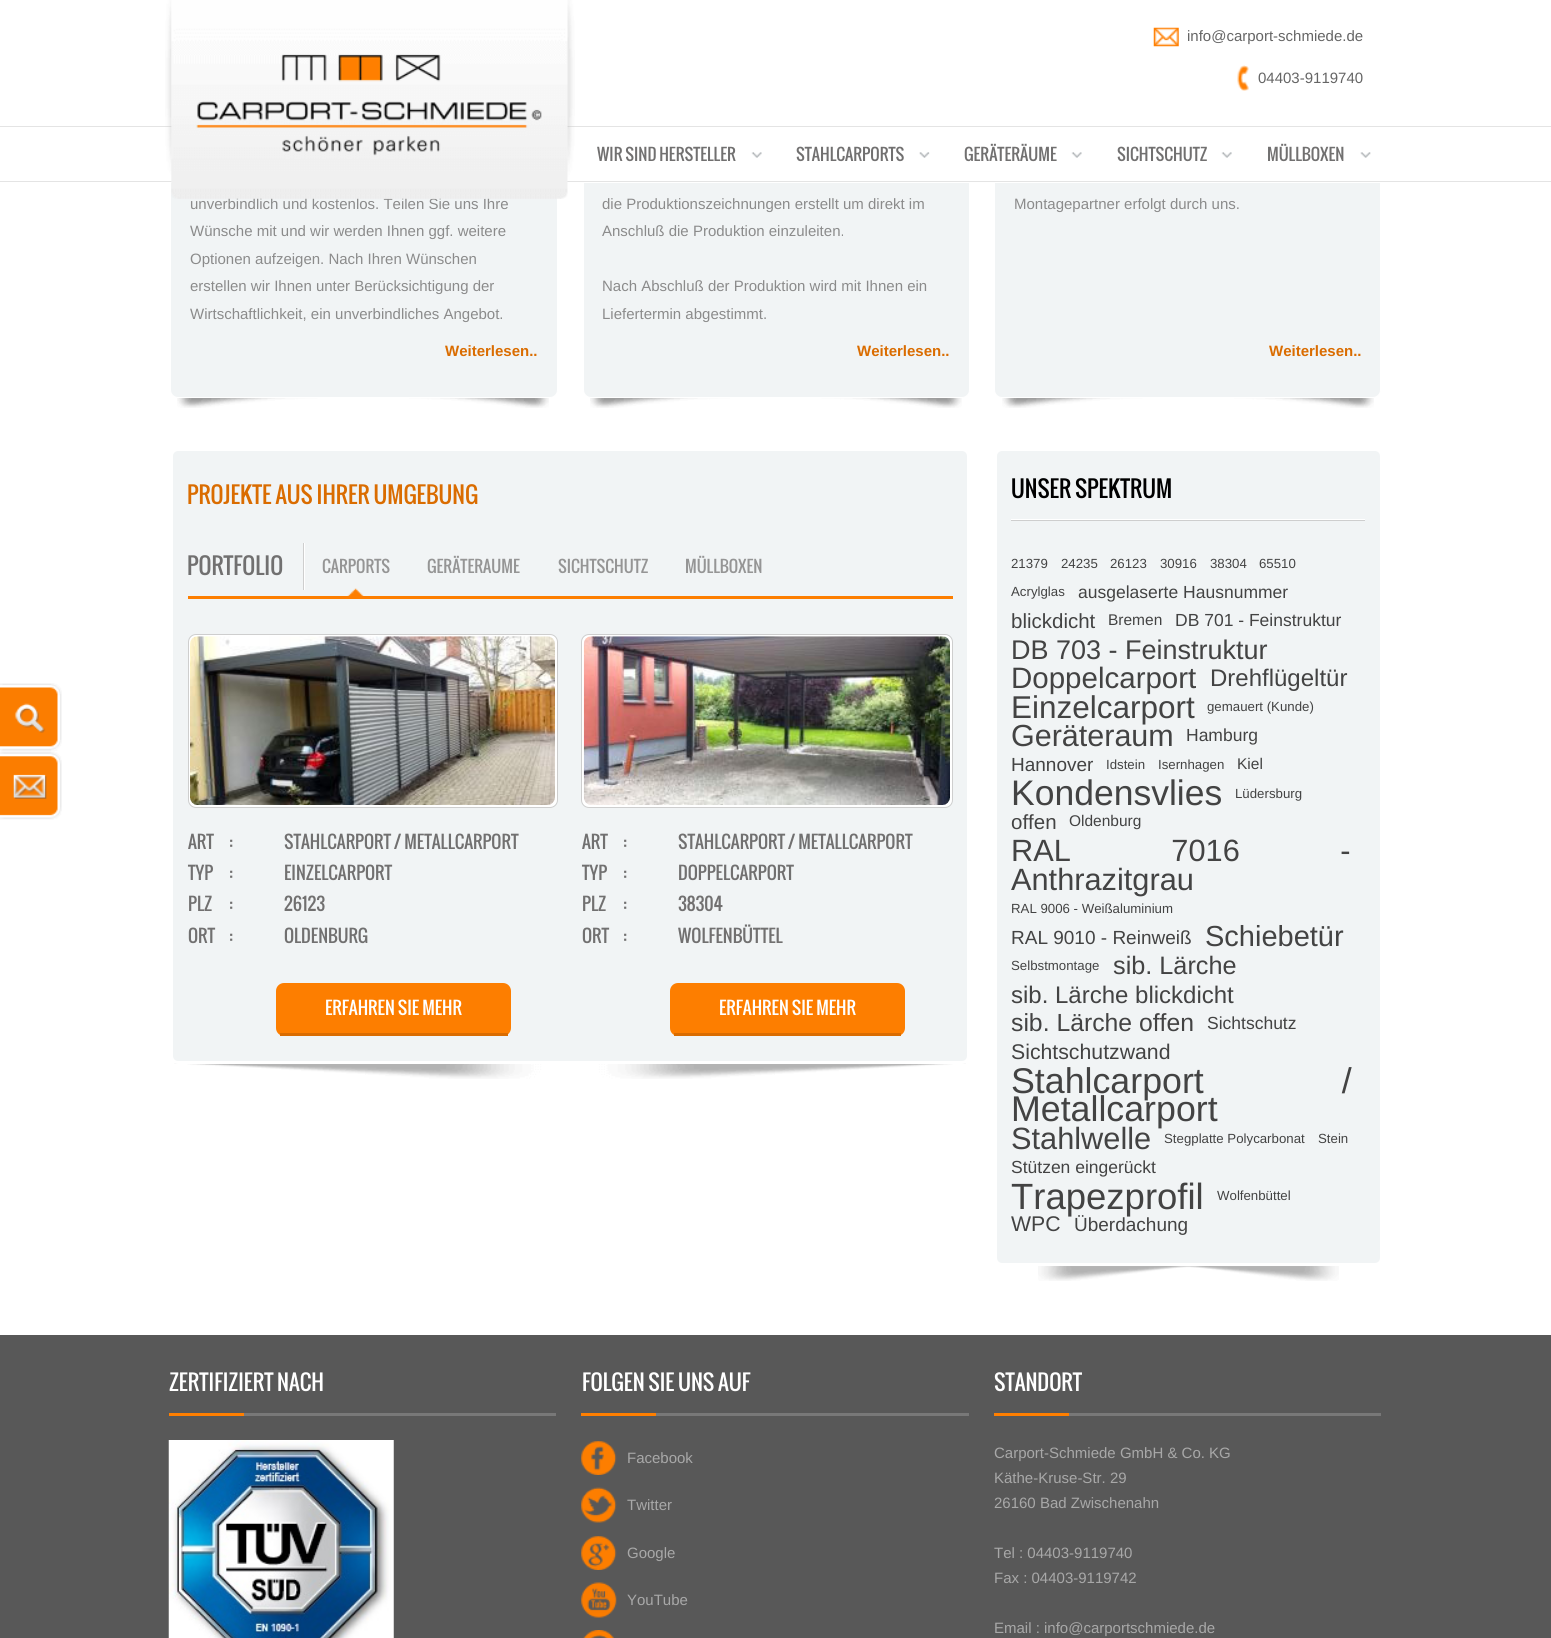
import math
import cairo

surface = cairo.ImageSurface(cairo.Format.RGB24, 1551, 1638)
ctx = cairo.Context(surface)
options = cairo.FontOptions()
options.set_hint_metrics(cairo.HintMetrics.OFF)
options.set_hint_style(cairo.HintStyle.NONE)
ctx.set_font_options(options)
ctx.set_miter_limit(4)


def ink(r, g, b):
    ctx.set_source_rgb(r / 255, g / 255, b / 255)


def write(x, y, s, family, size, color, bold=False, italic=False):
    ctx.select_font_face(family, cairo.FontSlant.ITALIC if italic else cairo.FontSlant.NORMAL, cairo.FontWeight.BOLD if bold else cairo.FontWeight.NORMAL)
    ctx.set_font_size(size)
    ink(*color)
    ctx.move_to(x, y)
    ctx.show_text(s)


def write_spaced(x, y, s, letter, word):
    ctx.move_to(x, y)
    for ch in s:
        ctx.show_text(ch)
        ctx.rel_move_to(letter + word * (ch == ' '), 0)


def block(x, y, w, h, *color):
    ink(*color)
    ctx.rectangle(x, y, w, h)
    ctx.fill()


def round_path(x, y, w, h, r):
    ctx.new_sub_path()
    for i, (u, v) in enumerate([(x + w - r, y + h - r), (x + r, y + h - r), (x + r, y + r), (x + w - r, y + r)]):
        ctx.arc(u, v, r, i * math.pi / 2, (i + 1) * math.pi / 2)
    ctx.close_path()


def paste(path, x, y, w, h):
    ctx.save()
    ctx.set_source_surface(cairo.ImageSurface.create_from_png(path), x, y)
    ctx.rectangle(x, y, w, h)
    ctx.fill()
    ctx.restore()


s1 = dict(family="Liberation Sans", size=15, color=(139, 139, 139))
s2 = dict(family="Liberation Sans", size=15, color=(101, 101, 101))
s3 = dict(family="Oswald", size=16.25, color=(113, 112, 112))
s4 = dict(family="Liberation Sans", size=15, color=(218, 108, 0), bold=True)
s5 = dict(family="Oswald", size=22.5, color=(218, 108, 0))
s6 = dict(family="Oswald", size=22.5, color=(113, 112, 112))
s7 = dict(family="Oswald", size=16.25, color=(149, 149, 149))
s8 = dict(family="Oswald", size=17.5, color=(113, 112, 112))
s9 = dict(family="Oswald", size=17.5, color=(255, 255, 255))
s10 = dict(family="Oswald", size=22.5, color=(0, 0, 0))
s11 = dict(family="Liberation Sans", size=13.25, color=(67, 67, 67))
s12 = dict(family="Liberation Sans", size=17.5, color=(67, 67, 67))
s13 = dict(family="Liberation Sans", size=20.5, color=(67, 67, 67))
s14 = dict(family="Liberation Sans", size=15.5, color=(67, 67, 67))
s15 = dict(family="Liberation Sans", size=27, color=(67, 67, 67))
s16 = dict(family="Liberation Sans", size=29.5, color=(67, 67, 67))
s17 = dict(family="Liberation Sans", size=24, color=(67, 67, 67))
s18 = dict(family="Liberation Sans", size=31.5, color=(67, 67, 67))
s19 = dict(family="Liberation Sans", size=30.5, color=(67, 67, 67))
s20 = dict(family="Liberation Sans", size=19, color=(67, 67, 67))
s21 = dict(family="Liberation Sans", size=35.5, color=(67, 67, 67))
s22 = dict(family="Liberation Sans", size=30.75, color=(67, 67, 67))
s23 = dict(family="Liberation Sans", size=29, color=(67, 67, 67))
s24 = dict(family="Liberation Sans", size=25.25, color=(67, 67, 67))
s25 = dict(family="Liberation Sans", size=24.75, color=(67, 67, 67))
s26 = dict(family="Liberation Sans", size=21.25, color=(67, 67, 67))
s27 = dict(family="Liberation Sans", size=35.75, color=(67, 67, 67))
s28 = dict(family="Liberation Sans", size=36.5, color=(67, 67, 67))
s29 = dict(family="Oswald", size=21.25, color=(255, 255, 255))
s30 = dict(family="Liberation Sans", size=15, color=(168, 168, 168))

ink(255, 255, 255)
ctx.paint()
paste("pic10.png", 177, 397, 372, 11)
ink(241, 244, 245)
round_path(170.5, 5.5, 387, 392, 7.5)
ctx.fill_preserve()
ink(255, 255, 255)
ctx.set_line_width(1)
ctx.stroke()
paste("pic11.png", 590, 397, 372, 11)
ink(241, 244, 245)
round_path(583.5, 5.5, 386, 392, 7.5)
ctx.fill_preserve()
ink(255, 255, 255)
ctx.stroke()
paste("pic12.png", 1002, 397, 372, 11)
ink(241, 244, 245)
round_path(994.5, 5.5, 386, 392, 7.5)
ctx.fill_preserve()
ink(255, 255, 255)
ctx.stroke()
block(170, 5, 1211, 178, 255, 255, 255)
block(0, 126, 1551, 1, 228, 228, 228)
block(0, 181, 1551, 1, 228, 228, 228)
write(190, 209, "unverbindlich und kostenlos. Teilen Sie uns Ihre", **s1)
paste("pic1.png", 165, 0, 410, 199)
paste("pic2.png", 1153, 27, 26, 20)
write(1187, 41, "info@carport-schmiede.de", **s2)
paste("pic3.png", 1237, 65, 12, 26)
write(1258, 83, "04403-9119740", **s2)
paste("pic4.png", 751, 152, 11, 6)
write(597, 161, "WIR SIND HERSTELLER", **s3)
paste("pic5.png", 919, 152, 11, 6)
write(796, 161, "STAHLCARPORTS", **s3)
paste("pic4.png", 1071, 152, 11, 6)
write(964, 161, "GERÄTERÄUME", **s3)
paste("pic6.png", 1221, 152, 11, 6)
write(1117, 161, "SICHTSCHUTZ", **s3)
paste("pic7.png", 1360, 152, 11, 6)
write(1267, 161, "MÜLLBOXEN", **s3)
paste("pic8.png", 0, 683, 62, 68)
paste("pic9.png", 0, 751, 62, 69)
write(190, 236, "Wünsche mit und wir werden Ihnen ggf. weitere", **s1)
write(190, 264, "Optionen aufzeigen. Nach Ihren Wünschen", **s1)
write(190, 291, "erstellen wir Ihnen unter Berücksichtigung der", **s1)
write(190, 319, "Wirtschaftlichkeit, ein unverbindliches Angebot.", **s1)
write(445, 356, "Weiterlesen..", **s4)
write(602, 209, "die Produktionszeichnungen erstellt um direkt im", **s1)
write(602, 236, "Anschluß die Produktion einzuleiten.", **s1)
write(602, 291, "Nach Abschluß der Produktion wird mit Ihnen ein", **s1)
write(602, 319, "Liefertermin abgestimmt.", **s1)
write(857, 356, "Weiterlesen..", **s4)
write(1014, 209, "Montagepartner erfolgt durch uns.", **s1)
write(1269, 356, "Weiterlesen..", **s4)
paste("pic13.png", 174, 1063, 792, 16)
ink(241, 244, 245)
round_path(171.5, 449.5, 797, 613, 6.5)
ctx.fill_preserve()
ink(255, 255, 255)
ctx.set_line_width(3)
ctx.stroke()
write(187, 504, "PROJEKTE AUS IHRER UMGEBUNG", **s5)
block(304, 543, 1, 47, 255, 255, 255)
block(303, 543, 1, 47, 206, 206, 206)
write(187, 575, "PORTFOLIO", **s6)
paste("pic14.png", 347, 588, 17, 8)
write(322, 573, "CARPORTS", **s7)
write(427, 573, "GERÄTERAUME", **s7)
write(558, 573, "SICHTSCHUTZ", **s7)
write(685, 573, "MÜLLBOXEN", **s7)
block(188, 596, 765, 3, 253, 126, 0)
ink(255, 255, 255)
round_path(188.5, 634.5, 369, 173, 7.5)
ctx.fill_preserve()
ink(206, 206, 206)
ctx.set_line_width(1)
ctx.stroke()
paste("pic15.png", 190, 636, 365, 169)
write(188, 849, "ART", **s8)
write(229, 849, ":", **s8)
write(284, 849, "STAHLCARPORT / METALLCARPORT", **s8)
write(188, 880, "TYP", **s8)
write(229, 880, ":", **s8)
write(284, 880, "EINZELCARPORT", **s8)
write(188, 911, "PLZ", **s8)
write(229, 911, ":", **s8)
write(284, 911, "26123", **s8)
write(188, 943, "ORT", **s8)
write(229, 943, ":", **s8)
write(284, 943, "OLDENBURG", **s8)
ink(253, 126, 0)
round_path(276, 983, 235, 53, 8)
ctx.fill()
block(280, 1033, 228, 3, 218, 108, 0)
write(325, 1015, "ERFAHREN SIE MEHR", **s9)
round_path(581.5, 634.5, 371, 173, 7.5)
ctx.fill_preserve()
ink(206, 206, 206)
ctx.stroke()
paste("pic16.png", 583, 636, 367, 169)
write(582, 849, "ART", **s8)
write(623, 849, ":", **s8)
write(678, 849, "STAHLCARPORT / METALLCARPORT", **s8)
write(582, 880, "TYP", **s8)
write(623, 880, ":", **s8)
write(678, 880, "DOPPELCARPORT", **s8)
write(582, 911, "PLZ", **s8)
write(623, 911, ":", **s8)
write(678, 911, "38304", **s8)
write(582, 943, "ORT", **s8)
write(623, 943, ":", **s8)
write(678, 943, "WOLFENBÜTTEL", **s8)
ink(253, 126, 0)
round_path(670, 983, 235, 53, 8)
ctx.fill()
block(674, 1033, 227, 3, 218, 108, 0)
write(719, 1015, "ERFAHREN SIE MEHR", **s9)
paste("pic17.png", 1038, 1266, 301, 15)
ink(241, 244, 245)
round_path(995.5, 449.5, 386, 815, 6.5)
ctx.fill_preserve()
ink(255, 255, 255)
ctx.set_line_width(3)
ctx.stroke()
ink(206, 206, 206)
ctx.new_path()
ctx.move_to(1011, 479)
ctx.line_to(1011, 521)
ctx.line_to(1365, 521)
ctx.line_to(1365, 520)
ctx.line_to(1011, 520)
ctx.close_path()
ctx.fill()
block(1011, 519, 354, 1, 255, 255, 255)
write(1011, 498, "UNSER SPEKTRUM", **s10)
write(1011, 568, "21379", **s11)
write(1061, 568, "24235", **s11)
write(1110, 568, "26123", **s11)
write(1160, 568, "30916", **s11)
write(1210, 568, "38304", **s11)
write(1259, 568, "65510", **s11)
write(1011, 596, "Acrylglas", **s11)
write(1078, 598, "ausgelaserte Hausnummer", **s12)
write(1011, 628, "blickdicht", **s13)
write(1108, 625, "Bremen", **s14)
write(1175, 626, "DB 701 - Feinstruktur", **s12)
write(1011, 659, "DB 703 - Feinstruktur", **s15)
write(1011, 688, "Doppelcarport", **s16)
write(1210, 686, "Drehflügeltür", **s17)
write(1011, 718, "Einzelcarport", **s18)
write(1207, 711, "gemauert (Kunde)", **s11)
write(1011, 746, "Geräteraum", **s19)
write(1186, 741, "Hamburg", **s12)
write(1011, 771, "Hannover", **s20)
write(1106, 769, "Idstein", **s11)
write(1158, 769, "Isernhagen", **s11)
write(1237, 769, "Kiel", **s14)
write(1011, 805, "Kondensvlies", **s21)
write(1235, 798, "Lüdersburg", **s11)
write(1011, 829, "offen", **s13)
write(1069, 826, "Oldenburg", **s14)
ctx.set_font_size(30.75)
write_spaced(1011, 861, "RAL 7016 -", 0, 92)
write(1011, 890, "Anthrazitgrau", **s22)
write(1011, 913, "RAL 9006 - Weißaluminium", **s11)
write(1011, 944, "RAL 9010 - Reinweiß", **s20)
write(1205, 946, "Schiebetür", **s23)
write(1011, 970, "Selbstmontage", **s11)
write(1113, 974, "sib. Lärche", **s24)
write(1011, 1003, "sib. Lärche blickdicht", **s17)
write(1011, 1031, "sib. Lärche offen", **s25)
write(1207, 1029, "Sichtschutz", **s12)
write(1011, 1059, "Sichtschutzwand", **s26)
ctx.set_font_size(35.75)
write_spaced(1011, 1093, "Stahlcarport /", 0, 128)
write(1011, 1121, "Metallcarport", **s27)
write(1011, 1149, "Stahlwelle", **s22)
write(1164, 1143, "Stegplatte Polycarbonat", **s11)
write(1318, 1143, "Stein", **s11)
write(1011, 1173, "Stützen eingerückt", **s12)
write(1011, 1209, "Trapezprofil", **s28)
write(1217, 1200, "Wolfenbüttel", **s11)
write(1011, 1231, "WPC", **s26)
write(1074, 1231, "Überdachung", **s20)
block(0, 1335, 1551, 303, 88, 88, 88)
block(244, 1413, 312, 3, 120, 120, 120)
write(169, 1391, "ZERTIFIZIERT NACH", **s29)
block(169, 1413, 75, 3, 255, 127, 0)
paste("pic18.png", 168, 1440, 226, 198)
block(656, 1413, 313, 3, 120, 120, 120)
write(582, 1391, "FOLGEN SIE UNS AUF", **s29)
block(581, 1413, 75, 3, 255, 127, 0)
paste("pic19.png", 581, 1441, 36, 34)
write(627, 1463, "Facebook", **s30)
paste("pic20.png", 581, 1487, 36, 36)
write(627, 1510, "Twitter", **s30)
paste("pic21.png", 581, 1536, 36, 34)
write(627, 1558, "Google", **s30)
paste("pic22.png", 581, 1582, 36, 36)
write(627, 1605, "YouTube", **s30)
paste("pic23.png", 583, 1630, 31, 8)
block(1069, 1413, 312, 3, 120, 120, 120)
write(994, 1391, "STANDORT", **s29)
block(994, 1413, 75, 3, 255, 127, 0)
write(994, 1458, "Carport-Schmiede GmbH & Co. KG", **s30)
write(994, 1483, "Käthe-Kruse-Str. 29", **s30)
write(994, 1508, "26160 Bad Zwischenahn", **s30)
write(994, 1558, "Tel : 04403-9119740", **s30)
write(994, 1583, "Fax : 04403-9119742", **s30)
write(994, 1633, "Email : info@carportschmiede.de", **s30)
surface.write_to_png("screenshot.png")
